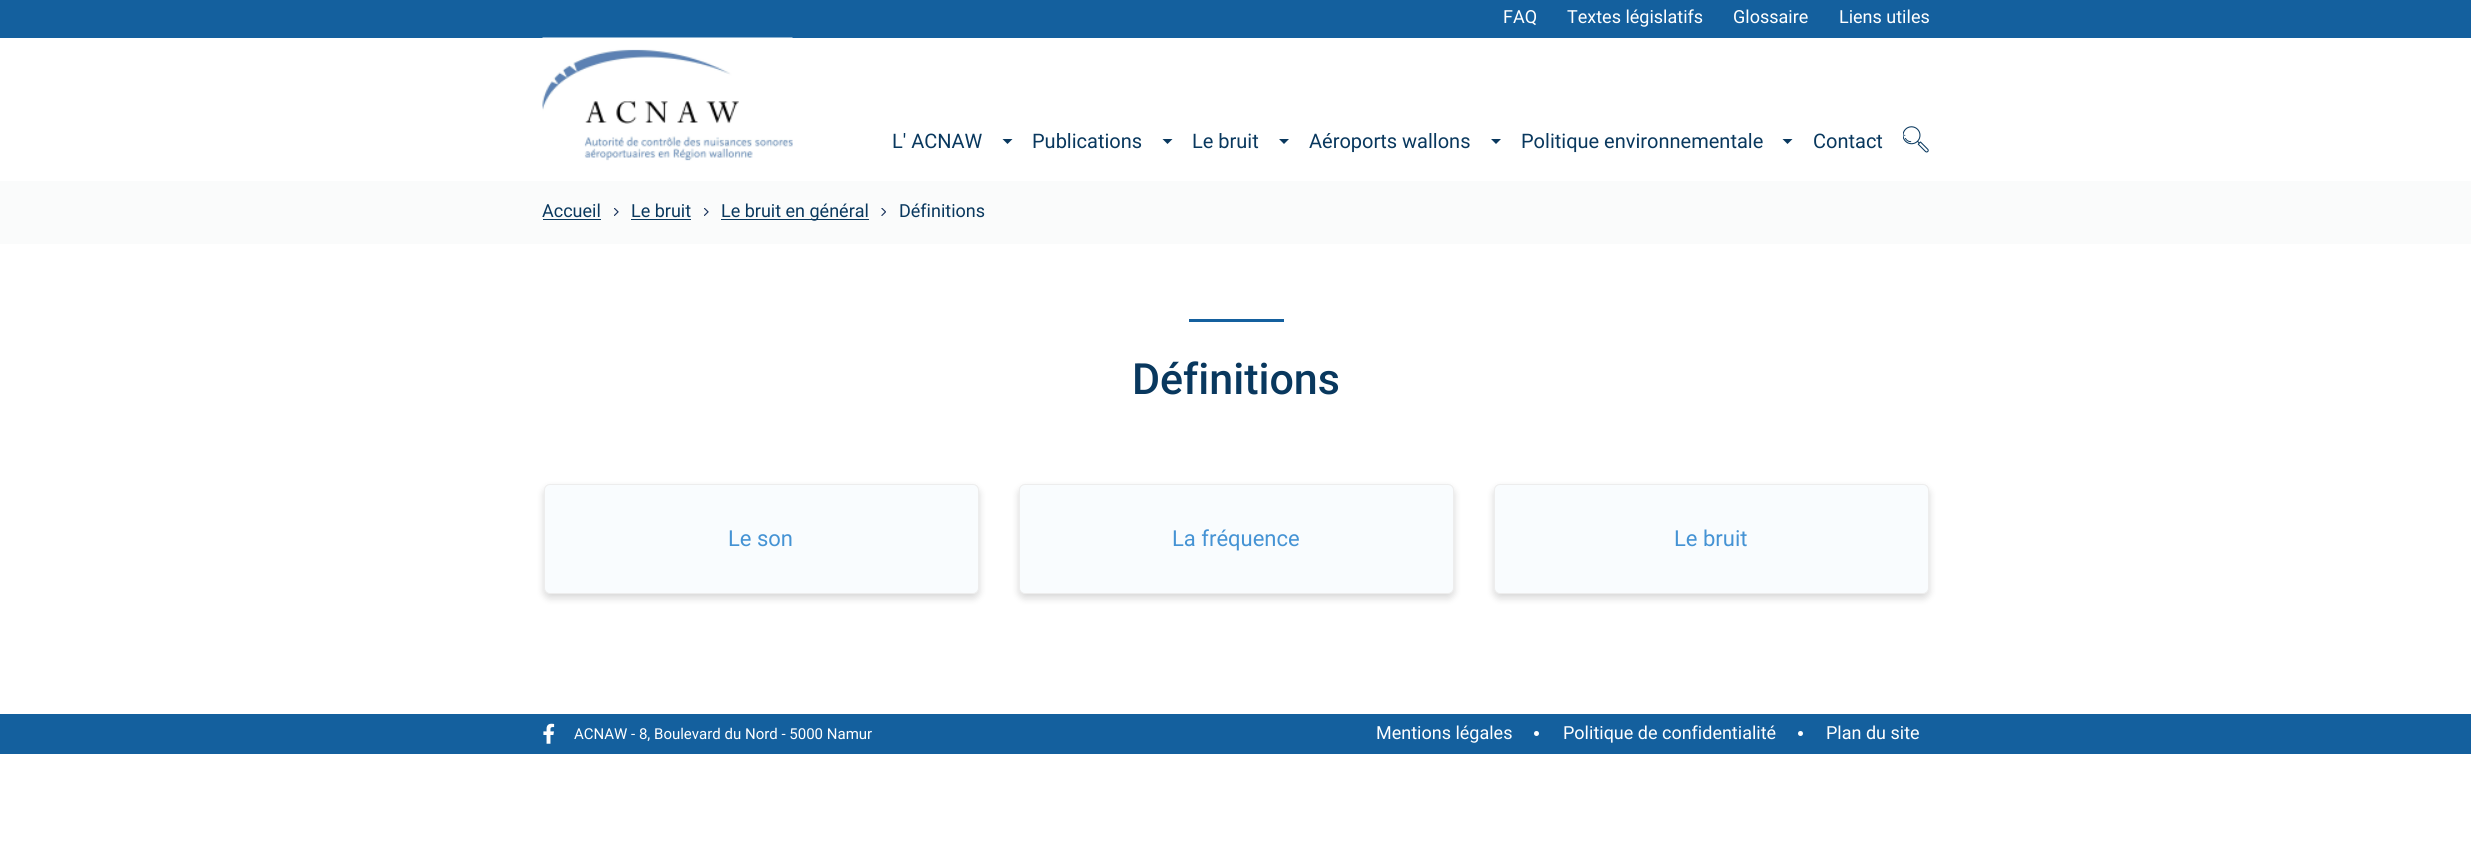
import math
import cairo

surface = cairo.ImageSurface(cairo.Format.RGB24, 2471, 852)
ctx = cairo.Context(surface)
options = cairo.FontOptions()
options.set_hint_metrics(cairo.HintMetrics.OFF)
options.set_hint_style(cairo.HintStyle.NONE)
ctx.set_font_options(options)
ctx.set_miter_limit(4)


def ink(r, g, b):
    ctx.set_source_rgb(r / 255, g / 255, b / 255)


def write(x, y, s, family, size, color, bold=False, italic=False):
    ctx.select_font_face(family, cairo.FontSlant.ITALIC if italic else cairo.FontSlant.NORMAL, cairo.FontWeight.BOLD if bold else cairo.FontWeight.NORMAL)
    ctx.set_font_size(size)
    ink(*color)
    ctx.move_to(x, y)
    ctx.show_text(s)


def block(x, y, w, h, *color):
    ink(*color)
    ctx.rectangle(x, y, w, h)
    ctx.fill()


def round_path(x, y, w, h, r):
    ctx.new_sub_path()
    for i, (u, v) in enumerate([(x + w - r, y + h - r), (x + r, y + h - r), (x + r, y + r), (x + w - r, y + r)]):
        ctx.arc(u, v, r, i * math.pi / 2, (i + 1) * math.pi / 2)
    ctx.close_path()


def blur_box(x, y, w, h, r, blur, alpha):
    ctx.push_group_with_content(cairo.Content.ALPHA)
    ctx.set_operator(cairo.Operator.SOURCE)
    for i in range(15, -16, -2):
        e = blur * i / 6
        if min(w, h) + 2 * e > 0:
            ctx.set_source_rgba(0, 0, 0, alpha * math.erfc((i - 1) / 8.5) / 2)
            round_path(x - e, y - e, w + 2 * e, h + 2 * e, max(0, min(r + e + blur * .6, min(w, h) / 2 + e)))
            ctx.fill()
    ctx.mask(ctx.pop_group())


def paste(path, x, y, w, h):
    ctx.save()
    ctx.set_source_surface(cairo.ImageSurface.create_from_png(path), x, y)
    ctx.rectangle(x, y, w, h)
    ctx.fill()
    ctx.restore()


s1 = dict(family="Roboto", size=18, color=(255, 255, 255))
s2 = dict(family="Roboto", size=20, color=(9, 56, 94))
s3 = dict(family="Roboto", size=18, color=(9, 56, 94))
s4 = dict(family="Roboto Medium", size=43, color=(9, 56, 94))
s5 = dict(family="Roboto", size=22, color=(69, 147, 212))
s6 = dict(family="Roboto", size=15, color=(255, 255, 255))

ink(255, 255, 255)
ctx.paint()
block(0, 0, 2471, 38, 20, 96, 158)
write(1503, 23, "FAQ", **s1)
write(1567, 23, "Textes législatifs", **s1)
write(1733, 23, "Glossaire", **s1)
write(1839, 23, "Liens utiles", **s1)
paste("pic1.png", 542, 37, 251, 124)
write(892, 148, "L' ACNAW", **s2)
ctx.new_path()
ctx.move_to(1002.5, 139)
ctx.line_to(1012.5, 139)
ctx.line_to(1007.5, 144)
ctx.close_path()
ctx.fill()
write(1032, 148, "Publications", **s2)
ctx.new_path()
ctx.move_to(1162.5, 139)
ctx.line_to(1172.5, 139)
ctx.line_to(1167.5, 144)
ctx.close_path()
ctx.fill()
write(1192, 148, "Le bruit", **s2)
ctx.new_path()
ctx.move_to(1279, 139)
ctx.line_to(1289, 139)
ctx.line_to(1284, 144)
ctx.close_path()
ctx.fill()
write(1309, 148, "Aéroports wallons", **s2)
ctx.new_path()
ctx.move_to(1491, 139)
ctx.line_to(1501, 139)
ctx.line_to(1496, 144)
ctx.close_path()
ctx.fill()
write(1521, 148, "Politique environnementale", **s2)
ctx.new_path()
ctx.move_to(1782.5, 139)
ctx.line_to(1792.5, 139)
ctx.line_to(1787.5, 144)
ctx.close_path()
ctx.fill()
write(1813, 148, "Contact", **s2)
paste("pic2.png", 1903, 126, 26, 27)
block(0, 181, 2471, 63, 250, 251, 251)
write(542, 217, "Accueil", **s3)
block(543, 219, 58, 1, 9, 56, 94)
paste("pic3.png", 614, 208, 5, 8)
write(631, 217, "Le bruit", **s3)
block(631, 219, 60, 1, 9, 56, 94)
paste("pic3.png", 704, 208, 5, 8)
block(721, 219, 148, 1, 9, 56, 94)
write(721, 217, "Le bruit en général", **s3)
paste("pic4.png", 881, 208, 5, 8)
write(899, 217, "Définitions", **s3)
block(1189, 319, 95, 3, 20, 96, 158)
write(1132, 394, "Définitions", **s4)
ink(0, 0, 0)
blur_box(544, 488, 435, 110, 6, 4, 0.16)
ink(249, 252, 254)
round_path(544.5, 484.5, 434, 109, 5.5)
ctx.fill_preserve()
ink(237, 237, 237)
ctx.set_line_width(1)
ctx.stroke()
write(728, 546, "Le son", **s5)
ink(0, 0, 0)
blur_box(1019, 488, 435, 110, 6, 4, 0.16)
ink(249, 252, 254)
round_path(1019.5, 484.5, 434, 109, 5.5)
ctx.fill_preserve()
ink(237, 237, 237)
ctx.stroke()
write(1172, 546, "La fréquence", **s5)
ink(0, 0, 0)
blur_box(1494, 488, 435, 110, 6, 4, 0.16)
ink(249, 252, 254)
round_path(1494.5, 484.5, 434, 109, 5.5)
ctx.fill_preserve()
ink(237, 237, 237)
ctx.stroke()
write(1674, 546, "Le bruit", **s5)
block(0, 714, 2471, 40, 20, 96, 158)
paste("pic5.png", 543, 723, 12, 21)
write(574, 739, "ACNAW - 8, Boulevard du Nord - 5000 Namur", **s6)
write(1376, 739, "Mentions légales", **s1)
ctx.new_path()
ctx.arc(1536.5, 733.5, 2.5, 0, 2 * math.pi)
ctx.fill()
write(1563, 739, "Politique de confidentialité", **s1)
ctx.new_path()
ctx.arc(1800.5, 733.5, 2.5, 0, 2 * math.pi)
ctx.fill()
write(1826, 739, "Plan du site", **s1)
surface.write_to_png("screenshot.png")
